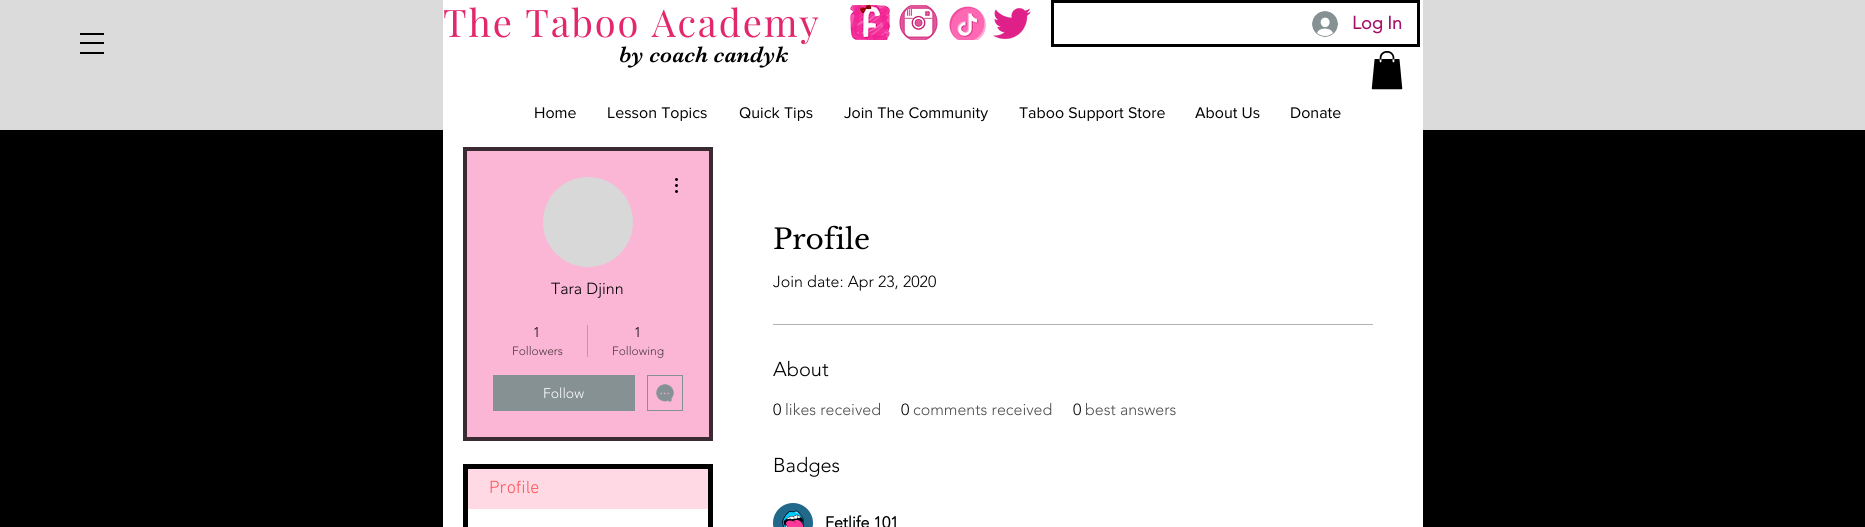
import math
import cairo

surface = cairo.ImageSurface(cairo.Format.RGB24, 1865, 527)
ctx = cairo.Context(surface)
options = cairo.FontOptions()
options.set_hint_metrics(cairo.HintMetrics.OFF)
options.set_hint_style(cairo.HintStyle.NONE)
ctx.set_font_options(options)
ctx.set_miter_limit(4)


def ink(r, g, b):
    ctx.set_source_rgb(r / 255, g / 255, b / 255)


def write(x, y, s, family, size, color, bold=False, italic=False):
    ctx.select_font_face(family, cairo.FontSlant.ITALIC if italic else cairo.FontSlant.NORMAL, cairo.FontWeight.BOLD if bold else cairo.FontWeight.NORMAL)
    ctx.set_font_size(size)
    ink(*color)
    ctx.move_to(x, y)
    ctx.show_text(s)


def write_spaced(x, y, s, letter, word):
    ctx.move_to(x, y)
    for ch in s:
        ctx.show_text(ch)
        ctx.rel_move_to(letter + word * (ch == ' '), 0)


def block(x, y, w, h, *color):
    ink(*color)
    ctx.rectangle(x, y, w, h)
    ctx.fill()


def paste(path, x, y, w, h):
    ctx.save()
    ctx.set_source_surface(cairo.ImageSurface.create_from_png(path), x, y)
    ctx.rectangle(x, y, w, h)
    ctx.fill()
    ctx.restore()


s1 = dict(family="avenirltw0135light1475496", size=18, color=(166, 15, 105), bold=True)
s2 = dict(family="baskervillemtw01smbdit", size=23, color=(0, 0, 0))
s3 = dict(family="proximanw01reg", size=16, color=(0, 0, 0))
s4 = dict(family="avenirltw0135light1475496 Light", size=16, color=(0, 0, 0))
s5 = dict(family="avenirltw0135light1475496 Light", size=14, color=(0, 0, 0))
s6 = dict(family="avenirltw0135light1475496 Light", size=12, color=(75, 55, 64))
s7 = dict(family="avenirltw0135light1475496 Light", size=14, color=(255, 255, 255))
s8 = dict(family="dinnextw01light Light", size=18, color=(255, 79, 79))
s9 = dict(family="Libre Baskerville", size=28, color=(0, 0, 0))
s10 = dict(family="avenirltw0135light1475496 Light", size=20, color=(0, 0, 0))
s11 = dict(family="avenirltw0135light1475496 Light", size=16, color=(77, 77, 77))
s12 = dict(family="avenirltw0135light1475496", size=16, color=(0, 0, 0), bold=True)

ink(0, 0, 0)
ctx.paint()
block(0, 0, 1865, 130, 219, 219, 219)
block(80, 33, 24, 2, 0, 0, 0)
block(80, 42, 24, 2, 0, 0, 0)
block(80, 52, 24, 2, 0, 0, 0)
block(443, 0, 980, 527, 255, 255, 255)
ctx.select_font_face("Playfair Display")
ctx.set_font_size(38)
ink(227, 39, 108)
write_spaced(443, 37, "The Taboo Academy", 1.9, 0)
paste("pic1.png", 850, 5, 40, 35)
paste("pic2.png", 899, 5, 39, 35)
paste("pic3.png", 949, 6, 38, 34)
paste("pic4.png", 993, 8, 38, 32)
ctx.rectangle(1052.5, 1.5, 366, 44)
ink(0, 0, 0)
ctx.set_line_width(3)
ctx.stroke()
paste("pic5.png", 1312, 11, 26, 26)
write(1352, 29, "Log In", **s1)
write(619, 62, "by coach candyk", **s2)
paste("pic6.png", 1371, 51, 32, 39)
write(534, 118, "Home", **s3)
write(607, 118, "Lesson Topics", **s3)
write(739, 118, "Quick Tips", **s3)
write(844, 118, "Join The Community", **s3)
write(1019, 118, "Taboo Support Store", **s3)
write(1195, 118, "About Us", **s3)
write(1290, 118, "Donate", **s3)
ink(250, 182, 212)
ctx.rectangle(465, 149, 246, 290)
ctx.fill_preserve()
ink(58, 42, 49)
ctx.set_line_width(4)
ctx.stroke()
ink(216, 216, 216)
ctx.arc(588, 222, 45, 0, 2 * math.pi)
ctx.fill()
paste("pic7.png", 675, 178, 3, 15)
write(551, 294, "Tara Djinn", **s4)
write(533, 337, "1", **s5)
write(512, 355, "Followers", **s6)
block(587, 325, 1, 32, 200, 146, 170)
write(634, 337, "1", **s5)
write(612, 355, "Following", **s6)
block(493, 375, 142, 36, 134, 145, 148)
write(543, 398, "Follow", **s7)
ctx.rectangle(647.5, 375.5, 35, 35)
ink(134, 145, 148)
ctx.set_line_width(1)
ctx.stroke()
paste("pic8.png", 656, 384, 18, 18)
ctx.rectangle(465.5, 466.5, 245, 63)
ink(0, 0, 0)
ctx.set_line_width(5)
ctx.stroke()
block(468, 469, 240, 40, 255, 217, 228)
write(489, 493, "Profile", **s8)
write(773, 249, "Profile", **s9)
write(773, 287, "Join date: Apr 23, 2020", **s4)
block(773, 324, 600, 1, 179, 179, 179)
write(773, 376, "About", **s10)
write(773, 415, "0", **s4)
write(785, 415, "likes received", **s11)
write(901, 415, "0", **s4)
write(913, 415, "comments received", **s11)
write(1073, 415, "0", **s4)
write(1085, 415, "best answers", **s11)
write(773, 472, "Badges", **s10)
ink(34, 104, 139)
ctx.new_path()
ctx.arc(793, 523, 20, 0, 2 * math.pi)
ctx.fill()
paste("pic9.png", 782, 510, 22, 17)
write(825, 528, "Fetlife 101", **s12)
surface.write_to_png("screenshot.png")
